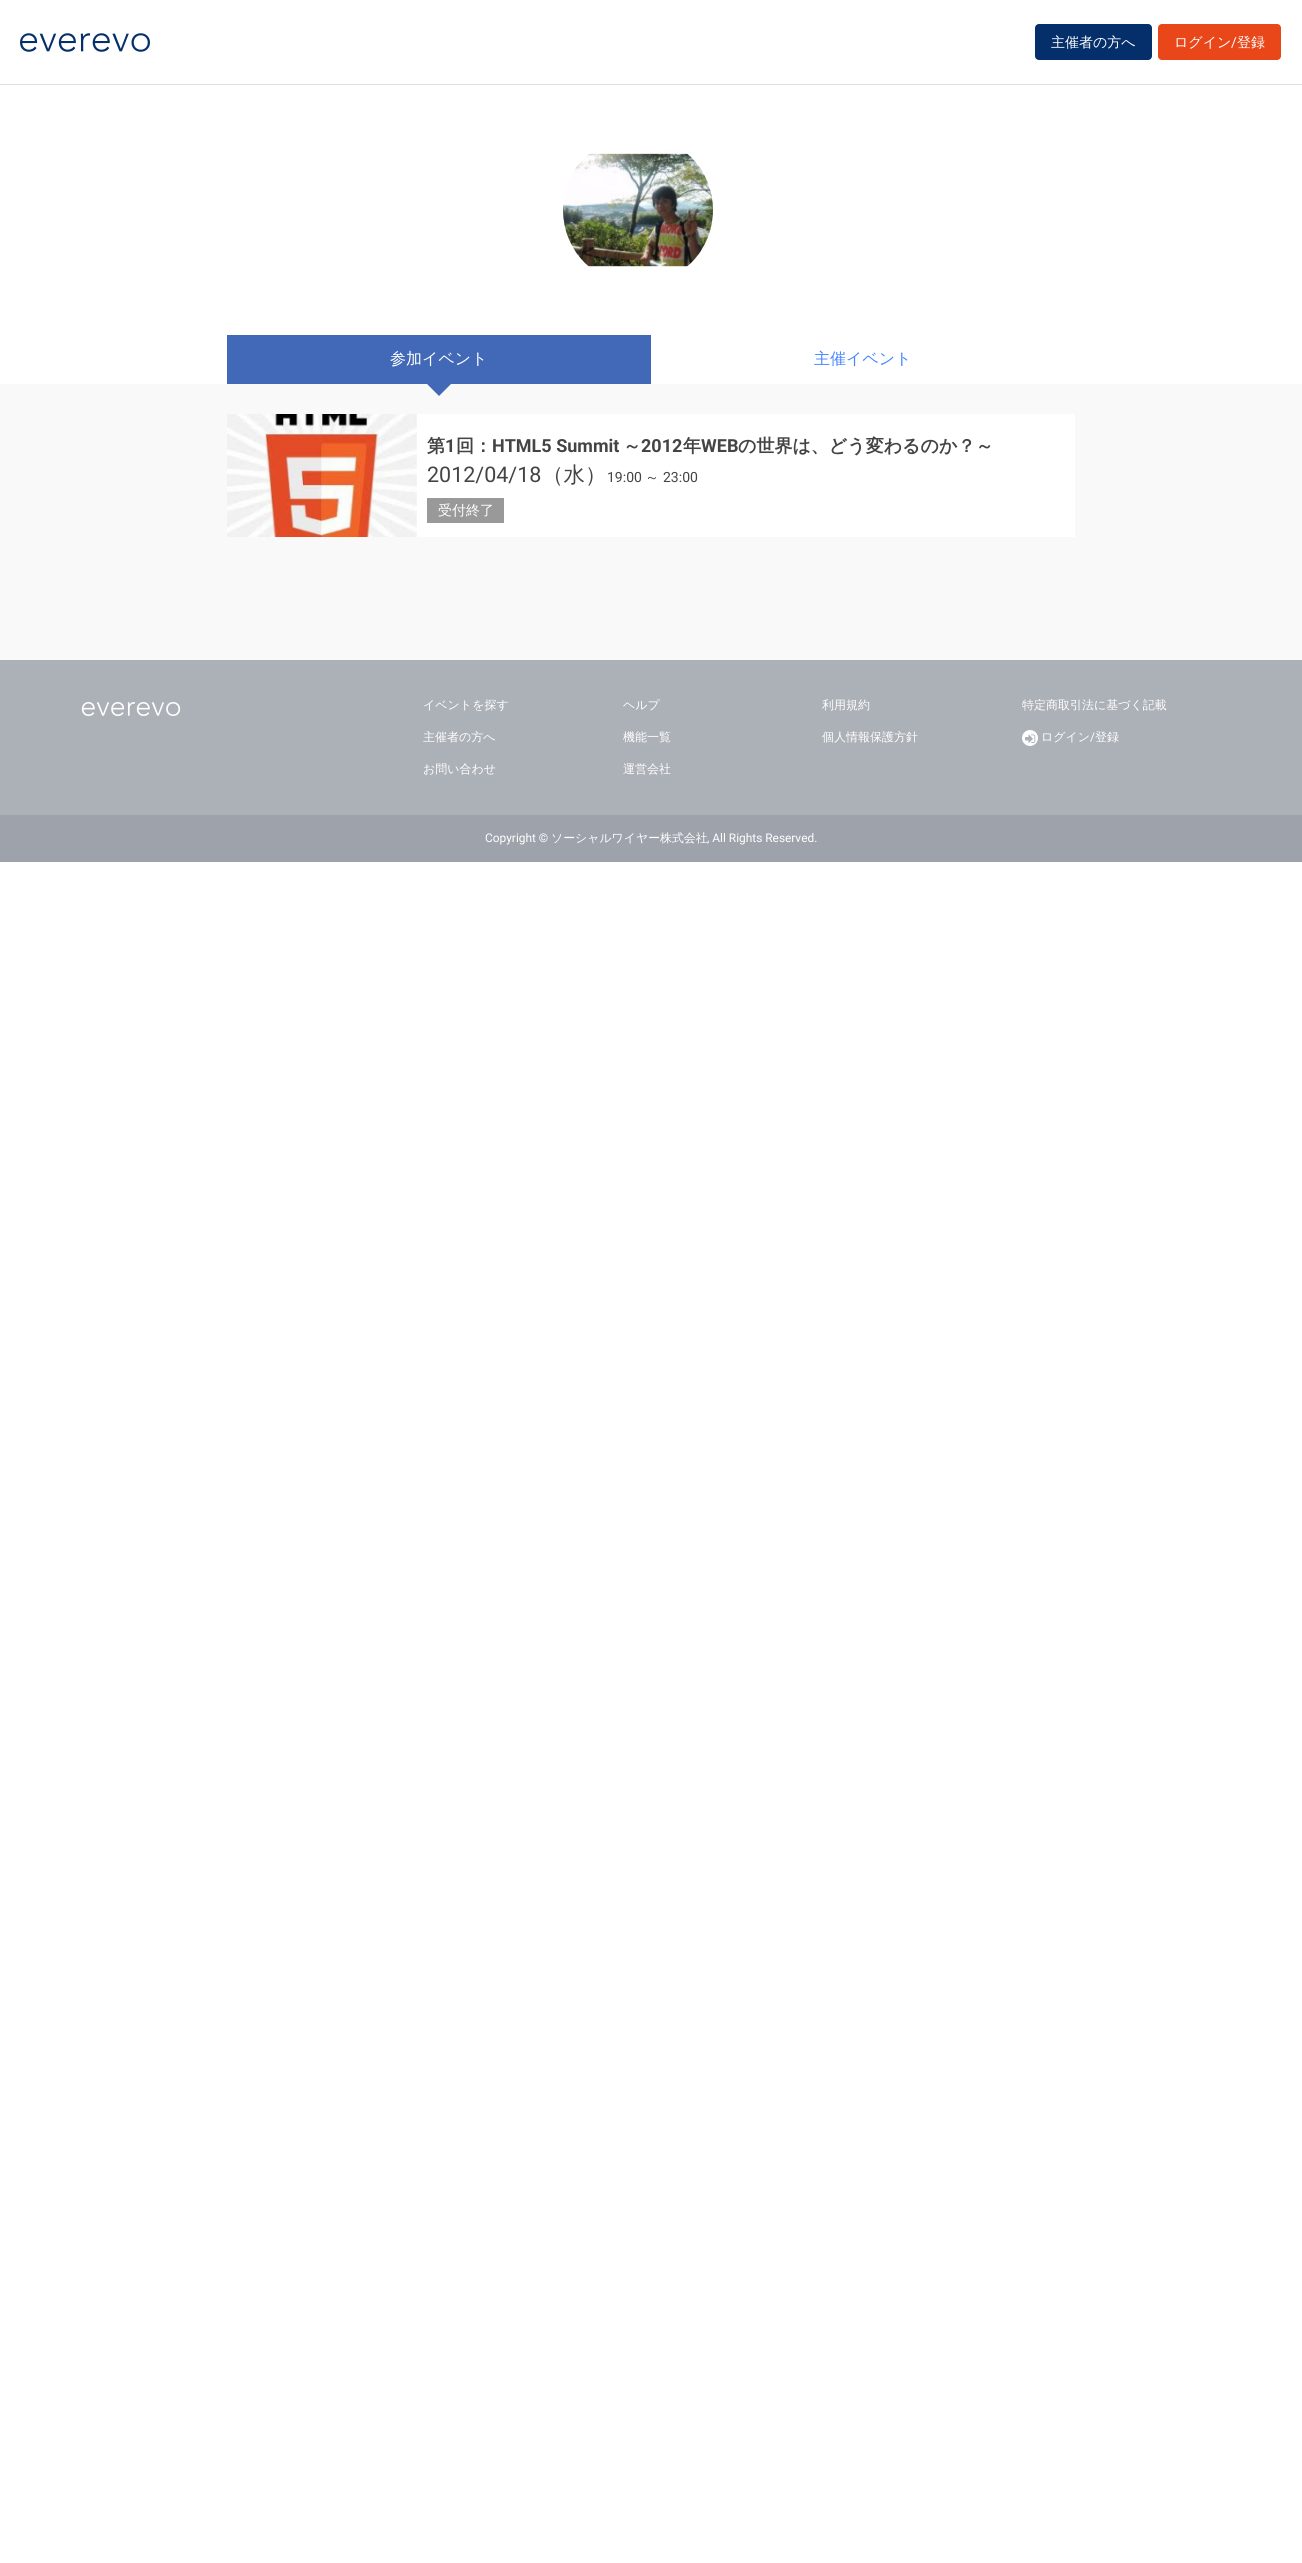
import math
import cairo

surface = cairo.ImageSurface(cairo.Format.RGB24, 1302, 2563)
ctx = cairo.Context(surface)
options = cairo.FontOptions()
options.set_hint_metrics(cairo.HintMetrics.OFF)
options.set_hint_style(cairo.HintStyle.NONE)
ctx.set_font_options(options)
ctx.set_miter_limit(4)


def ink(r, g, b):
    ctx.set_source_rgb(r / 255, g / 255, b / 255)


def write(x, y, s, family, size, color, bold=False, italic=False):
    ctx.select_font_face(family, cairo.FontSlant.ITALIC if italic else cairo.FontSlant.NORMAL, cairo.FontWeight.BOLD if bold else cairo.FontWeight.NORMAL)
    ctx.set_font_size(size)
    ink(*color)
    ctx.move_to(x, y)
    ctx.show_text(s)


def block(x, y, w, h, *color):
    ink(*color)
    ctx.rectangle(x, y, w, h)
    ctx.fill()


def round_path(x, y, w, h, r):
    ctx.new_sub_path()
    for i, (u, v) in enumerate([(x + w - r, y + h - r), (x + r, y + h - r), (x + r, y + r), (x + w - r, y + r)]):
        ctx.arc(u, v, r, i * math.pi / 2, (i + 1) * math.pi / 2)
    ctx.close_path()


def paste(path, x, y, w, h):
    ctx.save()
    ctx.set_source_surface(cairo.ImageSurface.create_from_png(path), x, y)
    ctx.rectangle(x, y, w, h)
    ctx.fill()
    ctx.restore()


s1 = dict(family="WenQuanYi Zen Hei Medium", size=14, color=(255, 255, 255))
s2 = dict(family="Roboto", size=14, color=(255, 255, 255))
s3 = dict(family="WenQuanYi Zen Hei Medium", size=16, color=(255, 255, 255))
s4 = dict(family="WenQuanYi Zen Hei Medium", size=16, color=(70, 134, 255))
s5 = dict(family="WenQuanYi Zen Hei", size=18, color=(68, 68, 68), bold=True)
s6 = dict(family="Roboto", size=18, color=(68, 68, 68), bold=True)
s7 = dict(family="Roboto", size=21.5, color=(68, 68, 68))
s8 = dict(family="WenQuanYi Zen Hei Medium", size=21.5, color=(68, 68, 68))
s9 = dict(family="Roboto", size=14, color=(68, 68, 68))
s10 = dict(family="WenQuanYi Zen Hei Medium", size=14, color=(68, 68, 68))
s11 = dict(family="WenQuanYi Zen Hei Medium", size=12, color=(255, 255, 255))
s12 = dict(family="Roboto", size=12, color=(255, 255, 255))
s13 = dict(family="Roboto", size=11.9, color=(255, 255, 255))
s14 = dict(family="WenQuanYi Zen Hei Medium", size=11.9, color=(255, 255, 255))

ink(255, 255, 255)
ctx.paint()
block(0, 84, 1302, 1, 225, 225, 225)
paste("pic1.png", 20, 33, 130, 19)
ink(5, 47, 107)
round_path(1035, 24, 117, 36, 4)
ctx.fill()
write(1051, 47, "主催者の方へ", **s1)
ink(233, 70, 25)
round_path(1158, 24, 123, 36, 4)
ctx.fill()
write(1174, 47, "ログイン", **s1)
write(1231, 47, "/", **s2)
write(1237, 47, "登録", **s1)
paste("pic2.png", 563, 150, 150, 118)
block(0, 384, 1302, 276, 249, 249, 249)
block(227, 335, 424, 49, 65, 105, 184)
write(390, 364, "参加イベント", **s3)
ink(65, 105, 184)
ctx.new_path()
ctx.move_to(427, 384)
ctx.line_to(451, 384)
ctx.line_to(439, 396)
ctx.close_path()
ctx.fill()
write(814, 364, "主催イベント", **s4)
block(417, 414, 658, 123, 255, 255, 255)
paste("pic3.png", 227, 414, 190, 123)
write(427, 452, "第", **s5)
write(445, 452, "1", **s6)
write(456, 452, "回：", **s5)
write(492, 452, "HTML5 Summit", **s6)
write(623, 452, "～", **s5)
write(641, 452, "2012", **s6)
write(683, 452, "年", **s5)
write(701, 452, "WEB", **s6)
write(738, 452, "の世界は、どう変わるのか？～", **s5)
write(427, 482, "2012/04/18", **s7)
write(542, 482, "（水）", **s8)
write(607, 482, "19:00", **s9)
write(645, 482, "～", **s10)
write(663, 482, "23:00", **s9)
block(427, 498, 77, 25, 153, 153, 153)
write(438, 515, "受付終了", **s1)
block(0, 660, 1302, 155, 172, 176, 183)
paste("pic4.png", 81, 702, 100, 14)
write(423, 709, "イベントを探す", **s11)
write(423, 741, "主催者の方へ", **s11)
write(423, 773, "お問い合わせ", **s11)
write(623, 709, "ヘルプ", **s11)
write(623, 741, "機能一覧", **s11)
write(623, 773, "運営会社", **s11)
write(822, 709, "利用規約", **s11)
write(822, 741, "個人情報保護方針", **s11)
write(1022, 709, "特定商取引法に基づく記載", **s11)
ctx.new_path()
ctx.arc(1030, 738, 8, 0, 2 * math.pi)
ctx.fill()
paste("pic5.png", 1025, 734, 11, 9)
write(1041, 741, "ログイン", **s11)
write(1090, 741, "/", **s12)
write(1095, 741, "登録", **s11)
block(0, 815, 1302, 47, 158, 163, 171)
write(485, 842, "Copyright ©", **s13)
write(551, 842, "ソーシャルワイヤー株式会社", **s14)
write(707, 842, ", All Rights Reserved.", **s13)
surface.write_to_png("screenshot.png")
